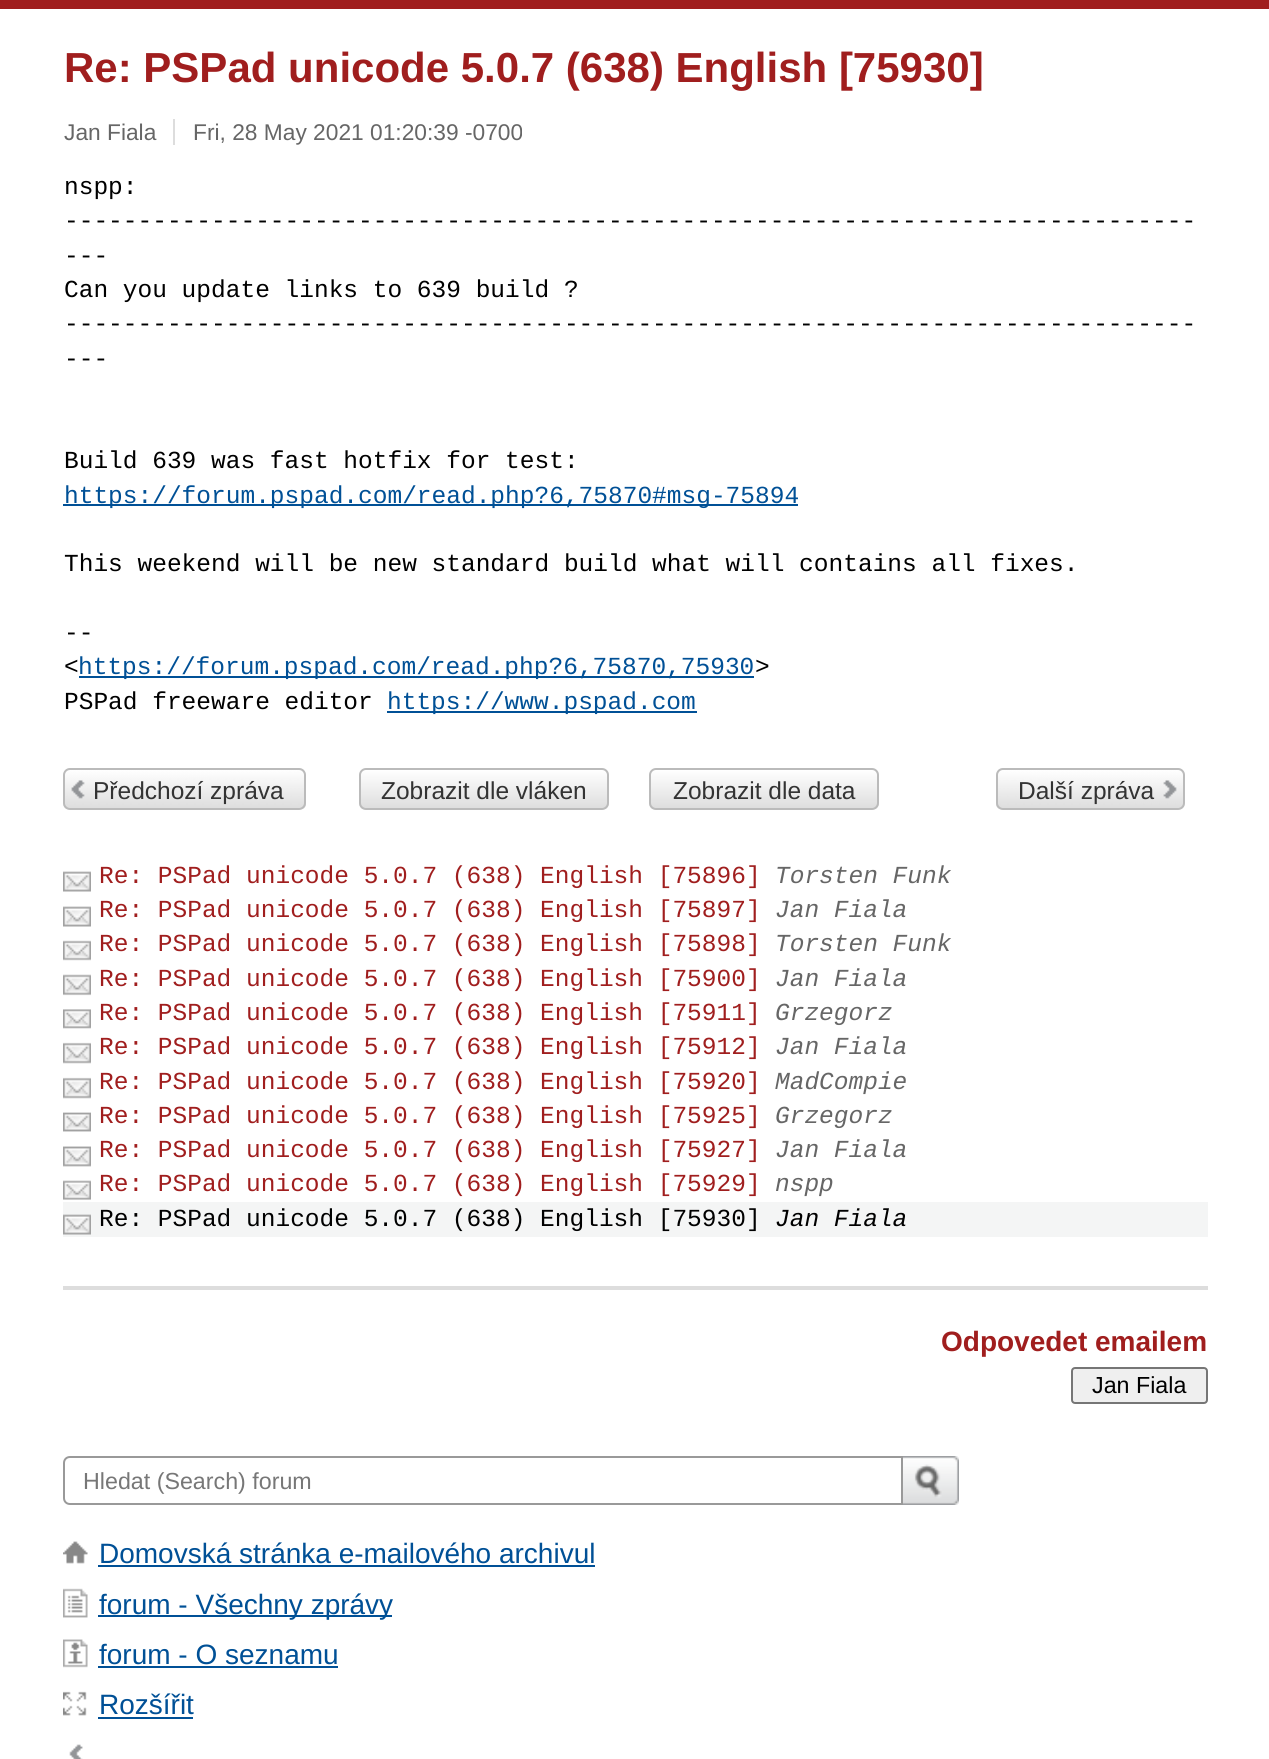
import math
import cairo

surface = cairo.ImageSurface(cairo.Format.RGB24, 1269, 1759)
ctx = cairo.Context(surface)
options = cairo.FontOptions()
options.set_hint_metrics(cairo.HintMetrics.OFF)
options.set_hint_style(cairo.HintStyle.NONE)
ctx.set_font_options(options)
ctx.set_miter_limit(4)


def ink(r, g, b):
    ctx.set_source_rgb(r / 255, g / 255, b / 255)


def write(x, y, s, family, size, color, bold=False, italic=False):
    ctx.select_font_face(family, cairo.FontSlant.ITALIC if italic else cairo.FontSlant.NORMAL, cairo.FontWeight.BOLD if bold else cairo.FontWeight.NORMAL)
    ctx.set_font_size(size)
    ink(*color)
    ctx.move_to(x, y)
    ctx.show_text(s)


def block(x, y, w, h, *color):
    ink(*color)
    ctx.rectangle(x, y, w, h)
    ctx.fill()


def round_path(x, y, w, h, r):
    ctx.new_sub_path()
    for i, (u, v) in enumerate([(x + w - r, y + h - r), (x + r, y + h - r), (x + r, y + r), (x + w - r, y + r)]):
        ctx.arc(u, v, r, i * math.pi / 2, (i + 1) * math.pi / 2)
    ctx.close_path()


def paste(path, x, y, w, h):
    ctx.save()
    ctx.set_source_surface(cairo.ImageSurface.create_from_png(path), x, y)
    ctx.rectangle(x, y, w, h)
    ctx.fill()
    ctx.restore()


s1 = dict(family="Liberation Sans", size=42, color=(160, 30, 30), bold=True)
s2 = dict(family="Liberation Sans", size=22.75, color=(102, 102, 102))
s3 = dict(family="Liberation Mono", size=24.5, color=(0, 0, 0))
s4 = dict(family="Liberation Mono", size=24.5, color=(0, 80, 150))
s5 = dict(family="Liberation Sans", size=24.5, color=(51, 51, 51))
s6 = dict(family="Liberation Mono", size=24.5, color=(160, 30, 30))
s7 = dict(family="Liberation Mono", size=24.5, color=(102, 102, 102), italic=True)
s8 = dict(family="Liberation Mono", size=24.5, color=(0, 0, 0), italic=True)
s9 = dict(family="Liberation Sans", size=28, color=(160, 30, 30), bold=True)
s10 = dict(family="Liberation Sans", size=23.25, color=(0, 0, 0))
s11 = dict(family="Liberation Sans", size=23.25, color=(119, 119, 119))
s12 = dict(family="Liberation Sans", size=28, color=(0, 80, 150))

ink(255, 255, 255)
ctx.paint()
block(0, 0, 1269, 9, 160, 30, 30)
write(64, 82, "Re: PSPad unicode 5.0.7 (638) English [75930]", **s1)
write(64, 140, "Jan Fiala", **s2)
block(173, 119, 2, 26, 221, 221, 221)
write(193, 140, "Fri, 28 May 2021 01:20:39 -0700", **s2)
write(64, 194, "nspp:", **s3)
write(64, 228, "-----------------------------------------------------------------------------", **s3)
write(64, 263, "---", **s3)
write(64, 297, "Can you update links to 639 build ?", **s3)
write(64, 331, "-----------------------------------------------------------------------------", **s3)
write(64, 366, "---", **s3)
write(64, 468, "Build 639 was fast hotfix for test:", **s3)
block(63, 504, 735, 2, 0, 80, 150)
write(64, 503, "https://forum.pspad.com/read.php?6,75870#msg-75894", **s4)
write(64, 571, "This weekend will be new standard build what will contains all fixes.", **s3)
write(64, 640, "--", **s3)
write(64, 674, "<", **s3)
block(79, 676, 675, 2, 0, 80, 150)
write(78, 674, "https://forum.pspad.com/read.php?6,75870,75930", **s4)
write(755, 674, ">", **s3)
write(64, 709, "PSPad freeware editor", **s3)
block(387, 711, 310, 2, 0, 80, 150)
write(387, 709, "https://www.pspad.com", **s4)
paste("pic1.png", 63, 768, 243, 42)
round_path(64, 769, 241, 40, 6)
ink(187, 187, 187)
ctx.stroke()
write(93, 799, "Předchozí zpráva", **s5)
ctx.save()
round_path(359, 768, 250, 42, 7)
ctx.clip()
gradient = cairo.LinearGradient(484, 770, 484, 809)
gradient.add_color_stop_rgba(0, 1, 1, 1, 1)
gradient.add_color_stop_rgba(1, 0.867, 0.867, 0.867, 1)
ctx.set_source(gradient)
ctx.rectangle(359, 770, 250, 39)
ctx.fill()
ctx.restore()
round_path(360, 769, 248, 40, 6)
ink(187, 187, 187)
ctx.stroke()
write(381, 799, "Zobrazit dle vláken", **s5)
ctx.save()
round_path(649, 768, 230, 42, 7)
ctx.clip()
gradient = cairo.LinearGradient(764, 770, 764, 809)
gradient.add_color_stop_rgba(0, 1, 1, 1, 1)
gradient.add_color_stop_rgba(1, 0.867, 0.867, 0.867, 1)
ctx.set_source(gradient)
ctx.rectangle(649, 770, 230, 39)
ctx.fill()
ctx.restore()
round_path(650, 769, 228, 40, 6)
ink(187, 187, 187)
ctx.stroke()
write(673, 799, "Zobrazit dle data", **s5)
paste("pic2.png", 996, 768, 189, 42)
round_path(997, 769, 187, 40, 6)
ink(187, 187, 187)
ctx.stroke()
write(1018, 799, "Další zpráva", **s5)
paste("pic3.png", 63, 871, 28, 21)
write(99, 883, "Re: PSPad unicode 5.0.7 (638) English [75896]", **s6)
write(775, 883, "Torsten Funk", **s7)
paste("pic3.png", 63, 906, 28, 21)
write(99, 917, "Re: PSPad unicode 5.0.7 (638) English [75897]", **s6)
write(775, 917, "Jan Fiala", **s7)
paste("pic4.png", 63, 940, 28, 21)
write(99, 951, "Re: PSPad unicode 5.0.7 (638) English [75898]", **s6)
write(775, 951, "Torsten Funk", **s7)
paste("pic5.png", 63, 974, 28, 22)
write(99, 986, "Re: PSPad unicode 5.0.7 (638) English [75900]", **s6)
write(775, 986, "Jan Fiala", **s7)
paste("pic6.png", 63, 1009, 28, 20)
write(99, 1020, "Re: PSPad unicode 5.0.7 (638) English [75911]", **s6)
write(775, 1020, "Grzegorz", **s7)
paste("pic7.png", 63, 1042, 28, 22)
write(99, 1054, "Re: PSPad unicode 5.0.7 (638) English [75912]", **s6)
write(775, 1054, "Jan Fiala", **s7)
paste("pic7.png", 63, 1077, 28, 22)
write(99, 1089, "Re: PSPad unicode 5.0.7 (638) English [75920]", **s6)
write(775, 1089, "MadCompie", **s7)
paste("pic8.png", 63, 1112, 28, 20)
write(99, 1123, "Re: PSPad unicode 5.0.7 (638) English [75925]", **s6)
write(775, 1123, "Grzegorz", **s7)
paste("pic9.png", 63, 1146, 28, 21)
write(99, 1157, "Re: PSPad unicode 5.0.7 (638) English [75927]", **s6)
write(775, 1157, "Jan Fiala", **s7)
paste("pic10.png", 63, 1180, 28, 20)
write(99, 1191, "Re: PSPad unicode 5.0.7 (638) English [75929]", **s6)
write(775, 1191, "nspp", **s7)
block(63, 1202, 1145, 35, 244, 245, 245)
paste("pic11.png", 63, 1214, 28, 21)
write(99, 1226, "Re: PSPad unicode 5.0.7 (638) English [75930]", **s3)
write(775, 1226, "Jan Fiala", **s8)
block(63, 1286, 1145, 4, 221, 221, 221)
write(941, 1351, "Odpovedet emailem", **s9)
ink(239, 239, 239)
round_path(1072, 1368, 135, 35, 3)
ctx.fill_preserve()
ink(118, 118, 118)
ctx.stroke()
write(1092, 1393, "Jan Fiala", **s10)
ctx.new_path()
ctx.move_to(70, 1457)
ctx.line_to(902, 1457)
ctx.line_to(902, 1504)
ctx.line_to(70, 1504)
ctx.curve_to(66.5, 1504, 64, 1501.5, 64, 1498)
ctx.line_to(64, 1463)
ctx.curve_to(64, 1459.5, 66.5, 1457, 70, 1457)
ctx.close_path()
ink(153, 153, 153)
ctx.stroke()
write(83, 1489, "Hledat (Search) forum", **s11)
paste("pic12.png", 903, 1456, 56, 49)
paste("pic13.png", 63, 1541, 25, 23)
write(99, 1563, "Domovská stránka e-mailového archivul", **s12)
block(98, 1565, 497, 2, 0, 80, 150)
paste("pic14.png", 63, 1588, 25, 30)
block(98, 1615, 294, 2, 0, 80, 150)
write(99, 1614, "forum - Všechny zprávy", **s12)
paste("pic15.png", 63, 1639, 25, 29)
write(99, 1664, "forum - O seznamu", **s12)
block(98, 1666, 240, 2, 0, 80, 150)
paste("pic16.png", 63, 1691, 24, 25)
write(99, 1714, "Rozšířit", **s12)
block(98, 1717, 95, 2, 0, 80, 150)
paste("pic17.png", 69, 1744, 14, 15)
surface.write_to_png("screenshot.png")
